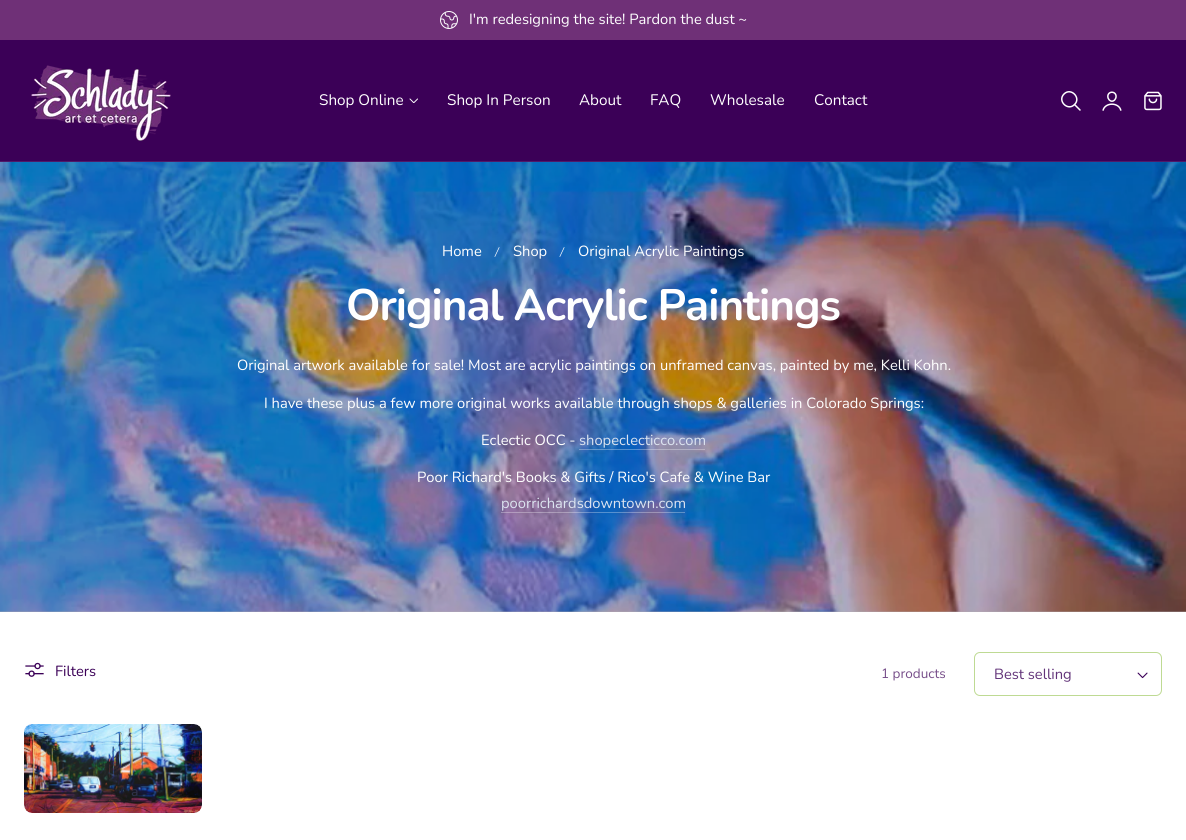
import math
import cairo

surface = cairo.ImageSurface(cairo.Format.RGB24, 1186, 840)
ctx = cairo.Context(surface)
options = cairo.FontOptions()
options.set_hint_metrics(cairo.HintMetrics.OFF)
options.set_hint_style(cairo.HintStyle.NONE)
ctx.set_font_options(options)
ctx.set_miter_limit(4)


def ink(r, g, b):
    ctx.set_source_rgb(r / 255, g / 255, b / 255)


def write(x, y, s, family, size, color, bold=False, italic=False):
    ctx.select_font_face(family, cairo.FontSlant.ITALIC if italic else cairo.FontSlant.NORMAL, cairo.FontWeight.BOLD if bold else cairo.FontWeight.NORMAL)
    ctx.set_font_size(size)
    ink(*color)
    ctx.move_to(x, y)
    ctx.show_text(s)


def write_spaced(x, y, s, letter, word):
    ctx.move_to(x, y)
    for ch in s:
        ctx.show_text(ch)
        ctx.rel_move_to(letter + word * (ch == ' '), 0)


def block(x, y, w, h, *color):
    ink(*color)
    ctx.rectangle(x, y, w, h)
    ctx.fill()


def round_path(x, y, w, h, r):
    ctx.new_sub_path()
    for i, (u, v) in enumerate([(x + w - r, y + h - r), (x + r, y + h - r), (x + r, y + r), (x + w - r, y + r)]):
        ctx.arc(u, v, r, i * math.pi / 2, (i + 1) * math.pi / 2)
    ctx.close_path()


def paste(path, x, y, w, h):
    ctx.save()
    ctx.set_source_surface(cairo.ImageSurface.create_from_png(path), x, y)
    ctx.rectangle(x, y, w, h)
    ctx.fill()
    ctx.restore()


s1 = dict(family="Nunito", size=14.7, color=(255, 255, 255))
s2 = dict(family="Nunito", size=15.25, color=(255, 255, 255))
s3 = dict(family="Nunito", size=14.7, color=(220, 228, 240))
s4 = dict(family="Nunito", size=14.7, color=(59, 0, 87))
s5 = dict(family="Nunito", size=13.5, color=(118, 77, 137))
s6 = dict(family="Nunito", size=14.7, color=(98, 51, 121))
s7 = dict(family="Nunito Medium", size=14, color=(46, 50, 75))

ink(255, 255, 255)
ctx.paint()
block(0, 0, 1186, 40, 111, 48, 119)
paste("pic1.png", 440, 11, 18, 18)
write(469, 24, "I'm redesigning the site! Pardon the dust ~", **s1)
block(0, 40, 1186, 121, 59, 0, 87)
block(0, 161, 1186, 1, 79, 26, 104)
paste("pic2.png", 31, 65, 140, 76)
write(319, 105, "Shop Online", **s2)
paste("pic3.png", 409, 98, 9, 5)
write(447, 105, "Shop In Person", **s2)
write(579, 105, "About", **s2)
write(650, 105, "FAQ", **s2)
write(710, 105, "Wholesale", **s2)
write(814, 105, "Contact", **s2)
ctx.new_path()
ctx.move_to(1080, 110)
ctx.line_to(1074.5, 104.5)
ctx.move_to(1074.5, 104.5)
ctx.curve_to(1081.5, 98, 1071, 87, 1064, 94)
ctx.curve_to(1057, 101, 1068, 111.5, 1074.5, 104.5)
ctx.close_path()
ctx.set_line_width(1.5)
ctx.set_line_cap(cairo.LineCap.ROUND)
ctx.set_line_join(cairo.LineJoin.ROUND)
ctx.stroke()
paste("pic4.png", 1102, 91, 20, 20)
paste("pic5.png", 1144, 91, 18, 20)
block(0, 611, 1186, 1, 177, 173, 179)
paste("pic6.png", 0, 162, 1186, 450)
write(442, 256, "Home", **s1)
ctx.new_path()
ctx.move_to(494.5, 256.5)
ctx.line_to(499, 247)
ctx.line_to(499.5, 247.5)
ctx.line_to(495, 257)
ctx.close_path()
ctx.fill()
write(513, 256, "Shop", **s1)
ctx.new_path()
ctx.move_to(559.5, 256.5)
ctx.line_to(564, 247)
ctx.line_to(564.5, 247.5)
ctx.line_to(560, 257)
ctx.close_path()
ctx.fill()
write(578, 256, "Original Acrylic Paintings", **s1)
ctx.select_font_face("Nunito", cairo.FontSlant.NORMAL, cairo.FontWeight.BOLD)
ctx.set_font_size(44)
write_spaced(346, 320, "Original Acrylic Paintings", -1, 0)
write(237, 370, "Original artwork available for sale! Most are acrylic paintings on unframed canvas, painted by me, Kelli Kohn.", **s1)
write(264, 408, "I have these plus a few more original works available through shops & galleries in Colorado Springs:", **s1)
write(481, 445, "Eclectic OCC -", **s1)
write(579, 445, "shopeclecticco.com", **s3)
ctx.set_source_rgba(1, 1, 1, 0.3)
ctx.rectangle(579, 449, 126, 1)
ctx.fill()
write(417, 482, "Poor Richard's Books & Gifts / Rico's Cafe & Wine Bar", **s1)
write(501, 508, "poorrichardsdowntown.com", **s3)
ctx.set_source_rgba(1, 1, 1, 0.3)
ctx.rectangle(501, 512, 184, 1)
ctx.fill()
paste("pic7.png", 25, 662, 19, 15)
write(55, 676, "Filters", **s4)
write(881, 678, "1 products", **s5)
round_path(974.5, 652.5, 187, 43, 5.5)
ink(190, 218, 147)
ctx.set_line_width(1)
ctx.set_line_cap(cairo.LineCap.BUTT)
ctx.set_line_join(cairo.LineJoin.MITER)
ctx.stroke()
write(994, 679, "Best selling", **s6)
paste("pic8.png", 1137, 672, 11, 7)
ink(245, 245, 245)
round_path(24, 724, 178, 89, 8)
ctx.fill()
paste("pic9.png", 24, 724, 178, 89)
write(131, 796, "a", **s7)
surface.write_to_png("screenshot.png")
